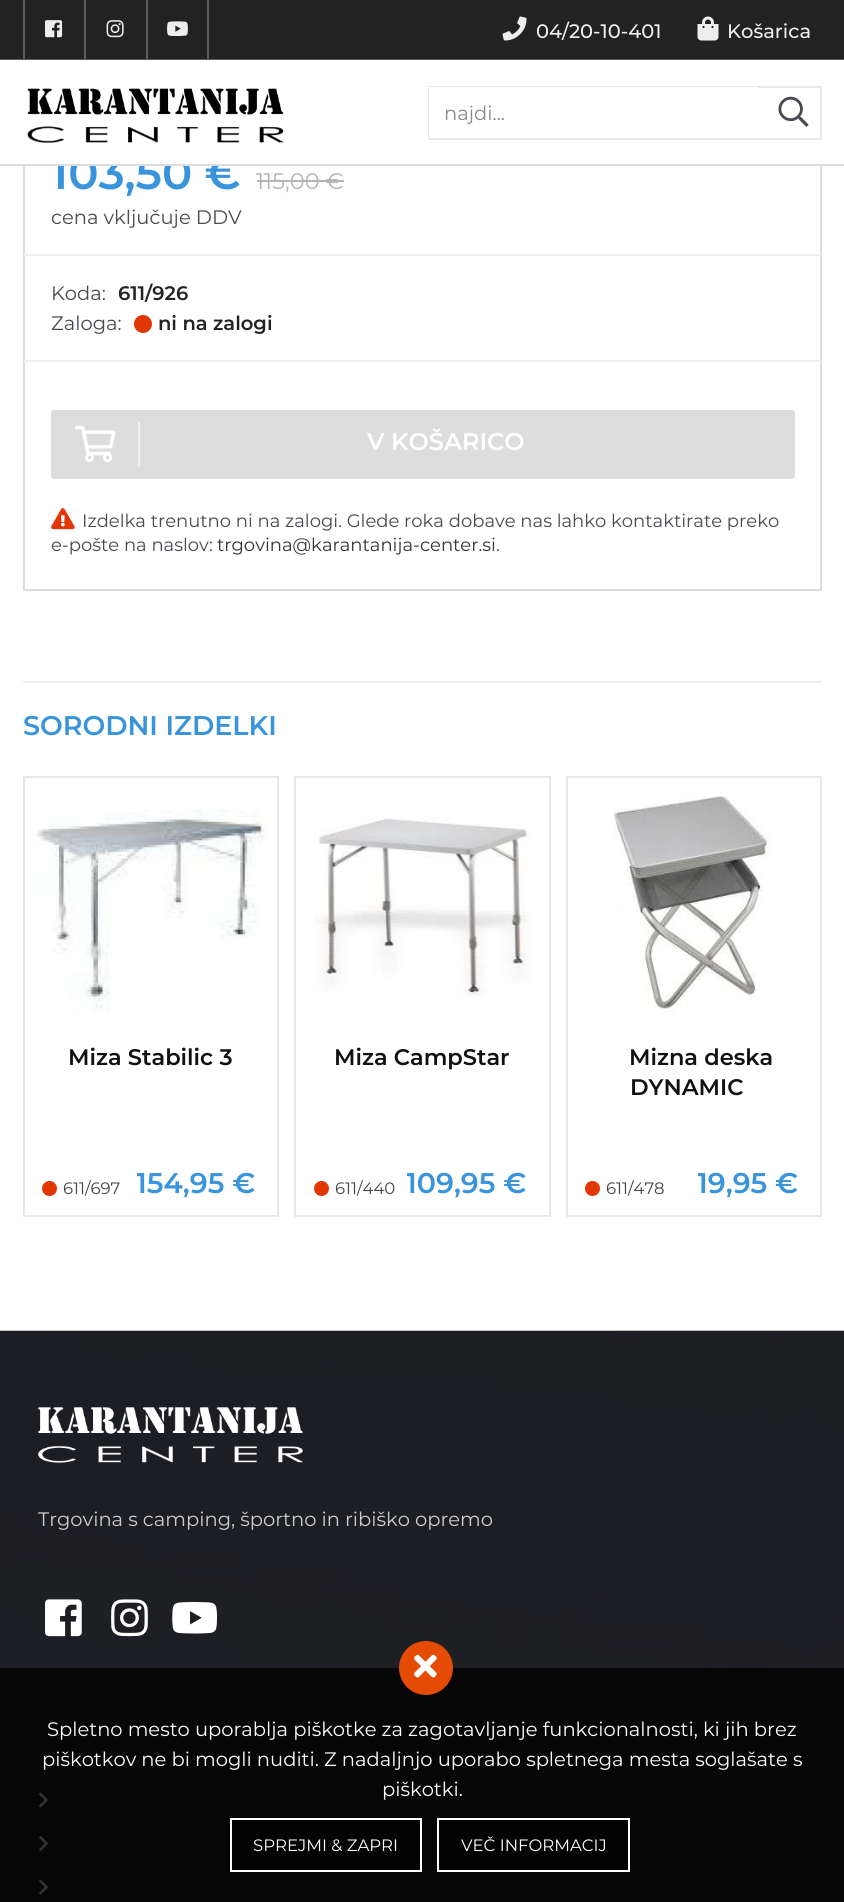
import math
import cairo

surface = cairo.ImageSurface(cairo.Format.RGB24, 844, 1902)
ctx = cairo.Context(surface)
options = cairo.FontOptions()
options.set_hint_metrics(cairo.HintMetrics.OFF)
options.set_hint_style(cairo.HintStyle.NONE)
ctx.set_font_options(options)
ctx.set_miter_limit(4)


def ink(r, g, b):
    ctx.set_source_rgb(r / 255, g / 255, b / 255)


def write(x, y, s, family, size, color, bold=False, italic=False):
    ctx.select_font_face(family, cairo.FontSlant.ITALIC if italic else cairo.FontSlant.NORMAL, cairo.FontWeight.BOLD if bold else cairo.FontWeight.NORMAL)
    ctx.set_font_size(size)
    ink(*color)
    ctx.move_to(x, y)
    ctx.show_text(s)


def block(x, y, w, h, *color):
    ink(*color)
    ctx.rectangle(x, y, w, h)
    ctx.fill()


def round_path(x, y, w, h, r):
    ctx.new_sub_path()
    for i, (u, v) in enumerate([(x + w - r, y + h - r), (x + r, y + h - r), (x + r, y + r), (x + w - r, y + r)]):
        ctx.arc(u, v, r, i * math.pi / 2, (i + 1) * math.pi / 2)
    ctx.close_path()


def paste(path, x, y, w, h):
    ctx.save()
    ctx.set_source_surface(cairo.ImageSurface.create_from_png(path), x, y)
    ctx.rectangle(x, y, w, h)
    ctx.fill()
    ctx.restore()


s1 = dict(family="Montserrat Medium", size=19.5, color=(238, 238, 238))
s2 = dict(family="Montserrat SemiBold", size=45, color=(57, 148, 219))
s3 = dict(family="Montserrat", size=19.5, color=(136, 136, 136))
s4 = dict(family="Montserrat", size=22.5, color=(181, 181, 181))
s5 = dict(family="Montserrat", size=19.5, color=(73, 74, 80))
s6 = dict(family="Montserrat SemiBold", size=19.5, color=(34, 34, 34))
s7 = dict(family="Montserrat SemiBold", size=24, color=(255, 255, 255))
s8 = dict(family="Montserrat", size=18, color=(73, 74, 80))
s9 = dict(family="Montserrat", size=18, color=(51, 51, 51))
s10 = dict(family="Montserrat SemiBold", size=27, color=(57, 148, 219))
s11 = dict(family="Montserrat SemiBold", size=22.5, color=(17, 17, 17))
s12 = dict(family="Montserrat", size=16.5, color=(68, 68, 68))
s13 = dict(family="Montserrat SemiBold", size=28.5, color=(57, 148, 219))
s14 = dict(family="Montserrat", size=19.5, color=(205, 205, 205))
s15 = dict(family="Montserrat", size=19.5, color=(255, 255, 255))
s16 = dict(family="Montserrat", size=16.5, color=(255, 255, 255))

ink(255, 255, 255)
ctx.paint()
block(0, 0, 844, 59, 34, 34, 34)
block(0, 59, 844, 1, 90, 90, 91)
block(84, 0, 2, 60, 90, 90, 91)
block(23, 0, 2, 60, 90, 90, 91)
paste("pic1.png", 45, 20, 18, 18)
block(146, 0, 2, 60, 90, 90, 91)
paste("pic2.png", 106, 20, 18, 18)
block(207, 0, 2, 60, 90, 90, 91)
paste("pic3.png", 167, 21, 21, 15)
paste("pic4.png", 502, 16, 25, 25)
write(536, 38, "04/20-10-401", **s1)
paste("pic5.png", 697, 16, 22, 25)
write(727, 38, "Košarica", **s1)
ctx.rectangle(24, 132, 797, 458)
ink(221, 221, 221)
ctx.stroke()
write(51, 189, "103,50 €", **s2)
block(23, 131, 799, 33, 255, 255, 255)
block(0, 164, 844, 2, 221, 221, 221)
paste("pic6.png", 27, 88, 257, 55)
ctx.rectangle(429, 87, 392, 52)
ink(232, 232, 232)
ctx.stroke()
block(429, 87, 329, 51, 255, 255, 255)
write(444, 120, "najdi...", **s3)
paste("pic7.png", 778, 96, 31, 31)
block(24, 254, 797, 2, 238, 238, 238)
write(256, 189, "115,00 €", **s4)
block(257, 180, 87, 2, 181, 181, 181)
write(51, 224, "cena vključuje DDV", **s5)
block(24, 360, 797, 2, 238, 238, 238)
write(51, 300, "Koda:", **s5)
write(118, 300, "611/926", **s6)
write(51, 330, "Zaloga:", **s5)
ink(226, 54, 4)
ctx.new_path()
ctx.arc(143, 324, 9, 0, 2 * math.pi)
ctx.fill()
write(158, 330, "ni na zalogi", **s6)
ink(221, 221, 221)
round_path(51, 410, 744, 69, 3)
ctx.fill()
block(138, 422, 2, 45, 241, 241, 241)
paste("pic8.png", 75, 426, 41, 36)
write(367, 450, "V KOŠARICO", **s7)
paste("pic9.png", 51, 508, 24, 22)
write(82, 527, "Izdelka trenutno ni na zalogi. Glede roka dobave nas lahko kontaktirate preko", **s8)
write(51, 551, "e-pošte na naslov:", **s8)
write(217, 551, "trgovina@karantanija-center.si", **s9)
write(496, 551, ".", **s8)
block(23, 681, 799, 2, 238, 238, 238)
write(23, 735, "SORODNI IZDELKI", **s10)
ctx.rectangle(24, 777, 254, 439)
ink(232, 232, 232)
ctx.stroke()
paste("pic10.png", 36, 808, 230, 204)
write(68, 1065, "Miza Stabilic 3", **s11)
ink(226, 54, 4)
ctx.new_path()
ctx.arc(49.5, 1188.5, 7.5, 0, 2 * math.pi)
ctx.fill()
write(63, 1194, "611/697", **s12)
ctx.save()
ctx.rectangle(137, 1170, 118, 36)
ctx.clip()
write(136, 1193, "154,95 €", **s13)
ctx.restore()
ctx.rectangle(295, 777, 255, 439)
ink(232, 232, 232)
ctx.stroke()
paste("pic11.png", 314, 817, 216, 180)
write(334, 1065, "Miza CampStar", **s11)
ink(226, 54, 4)
ctx.new_path()
ctx.arc(321.5, 1188.5, 7.5, 0, 2 * math.pi)
ctx.fill()
write(335, 1194, "611/440", **s12)
ctx.save()
ctx.rectangle(407, 1170, 120, 36)
ctx.clip()
write(406, 1193, "109,95 €", **s13)
ctx.restore()
ctx.rectangle(567, 777, 254, 439)
ink(232, 232, 232)
ctx.stroke()
paste("pic12.png", 613, 796, 157, 218)
write(629, 1065, "Mizna deska", **s11)
write(630, 1095, "DYNAMIC", **s11)
ink(226, 54, 4)
ctx.new_path()
ctx.arc(592.5, 1188.5, 7.5, 0, 2 * math.pi)
ctx.fill()
write(606, 1194, "611/478", **s12)
ctx.save()
ctx.rectangle(698, 1170, 100, 36)
ctx.clip()
write(697, 1193, "19,95 €", **s13)
ctx.restore()
paste("pic13.png", 0, 1330, 844, 572)
paste("pic14.png", 38, 1407, 265, 56)
write(38, 1526, "Trgovina s camping, športno in ribiško opremo", **s14)
paste("pic15.png", 45, 1599, 37, 38)
paste("pic16.png", 111, 1599, 37, 38)
paste("pic17.png", 172, 1602, 45, 32)
paste("pic18.png", 39, 1792, 9, 16)
paste("pic19.png", 39, 1836, 9, 15)
paste("pic20.png", 39, 1879, 9, 16)
ctx.set_source_rgba(0, 0, 0, 0.8)
ctx.rectangle(0, 1668, 844, 234)
ctx.fill()
write(47, 1736, "Spletno mesto uporablja piškotke za zagotavljanje funkcionalnosti, ki jih brez", **s15)
write(42, 1766, "piškotkov ne bi mogli nuditi. Z nadaljnjo uporabo spletnega mesta soglašate s", **s15)
write(382, 1796, "piškotki.", **s15)
ink(228, 75, 5)
ctx.new_path()
ctx.arc(426, 1668, 27, 0, 2 * math.pi)
ctx.fill()
paste("pic21.png", 414, 1654, 23, 24)
ctx.set_source_rgba(0, 0, 0, 0.55)
ctx.rectangle(231, 1819, 190, 52)
ctx.fill_preserve()
ink(255, 255, 255)
ctx.stroke()
write(253, 1851, "SPREJMI & ZAPRI", **s16)
ink(3, 3, 3)
ctx.rectangle(438, 1819, 191, 52)
ctx.fill_preserve()
ink(255, 255, 255)
ctx.stroke()
write(461, 1851, "VEČ INFORMACIJ", **s16)
surface.write_to_png("screenshot.png")
